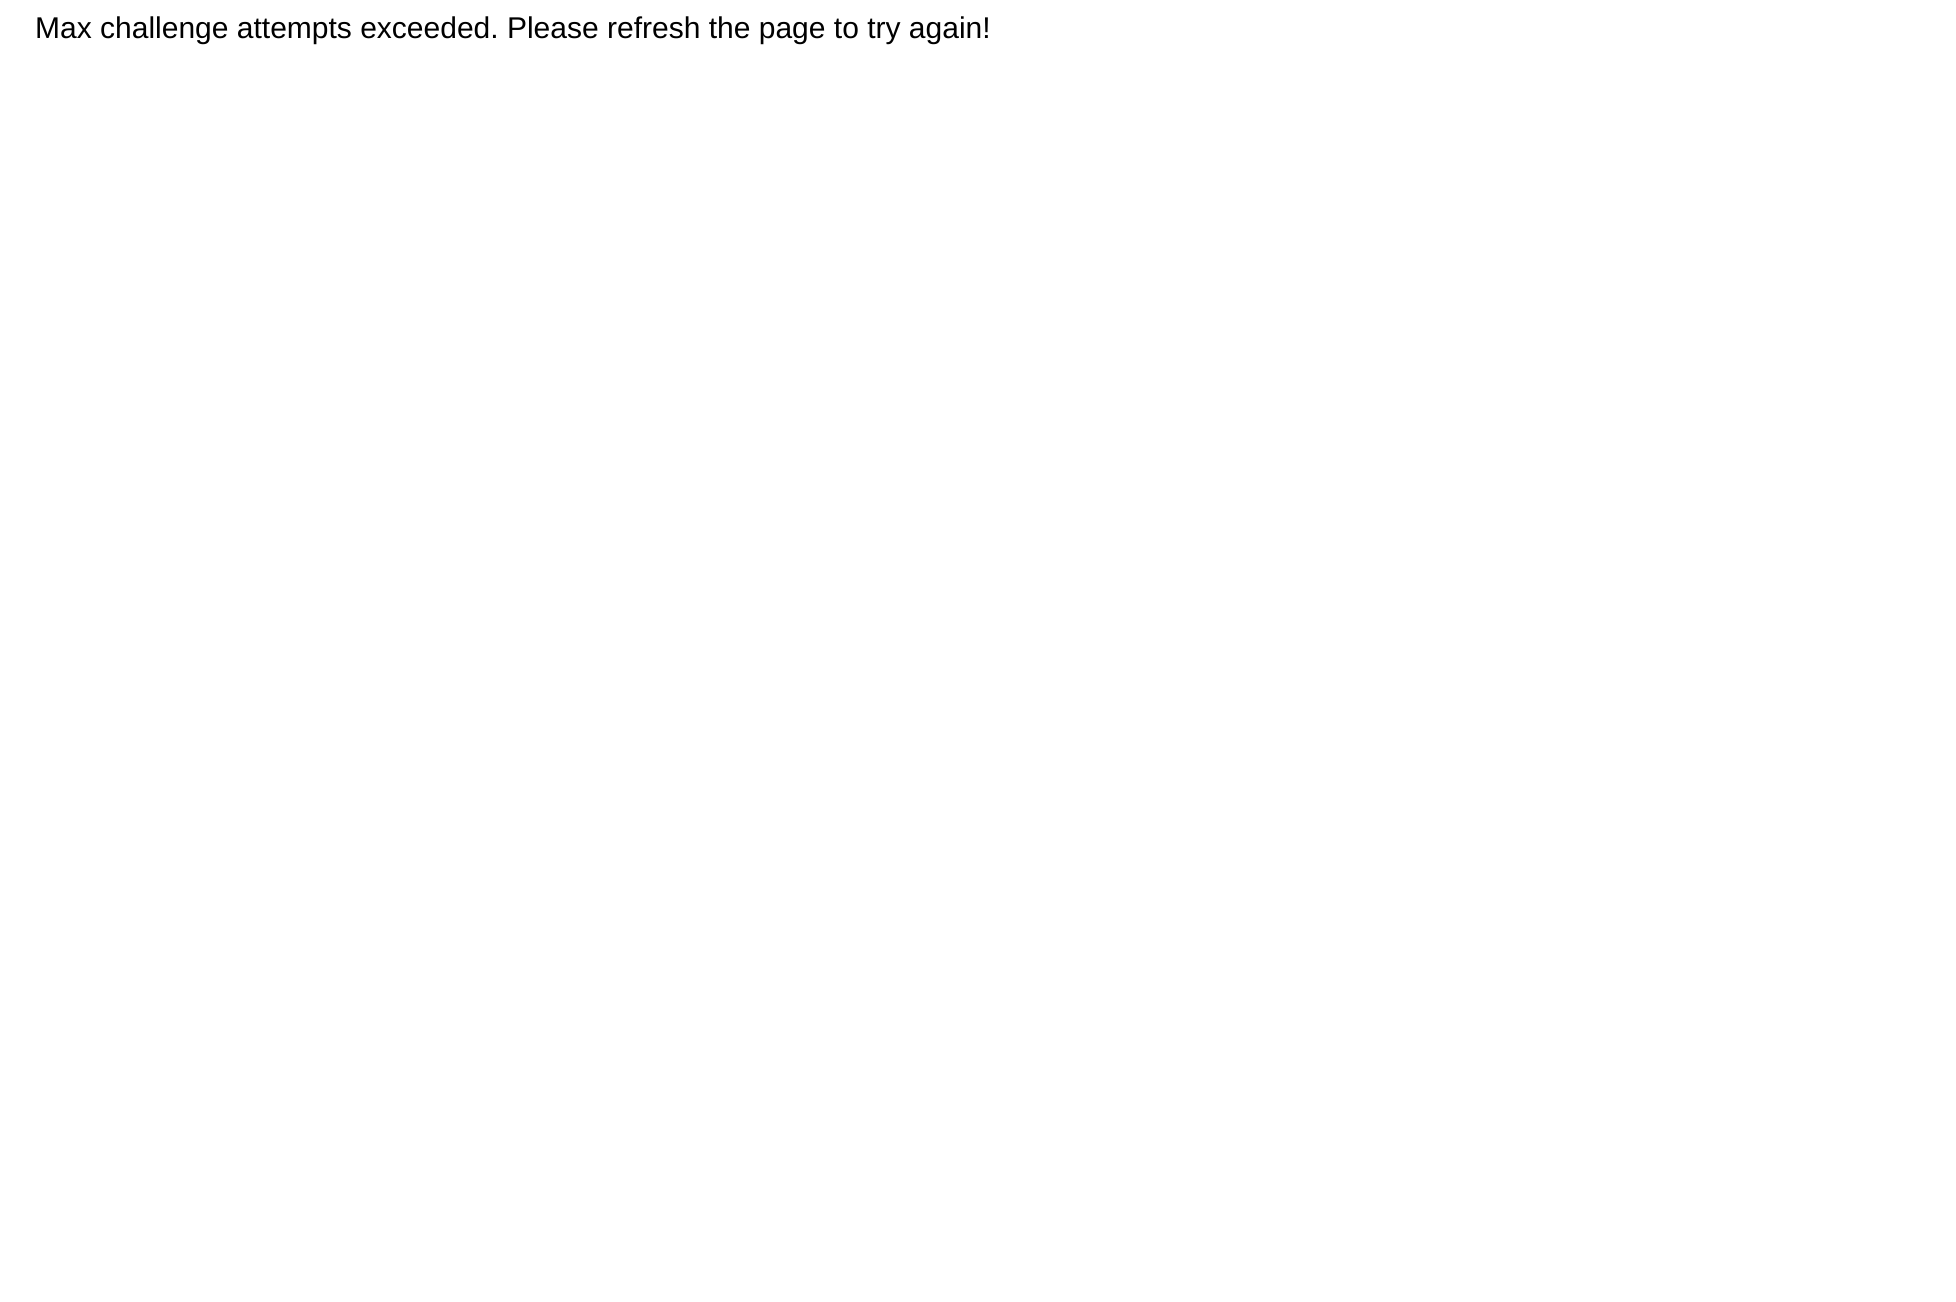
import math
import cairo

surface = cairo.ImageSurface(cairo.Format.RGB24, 1956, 1302)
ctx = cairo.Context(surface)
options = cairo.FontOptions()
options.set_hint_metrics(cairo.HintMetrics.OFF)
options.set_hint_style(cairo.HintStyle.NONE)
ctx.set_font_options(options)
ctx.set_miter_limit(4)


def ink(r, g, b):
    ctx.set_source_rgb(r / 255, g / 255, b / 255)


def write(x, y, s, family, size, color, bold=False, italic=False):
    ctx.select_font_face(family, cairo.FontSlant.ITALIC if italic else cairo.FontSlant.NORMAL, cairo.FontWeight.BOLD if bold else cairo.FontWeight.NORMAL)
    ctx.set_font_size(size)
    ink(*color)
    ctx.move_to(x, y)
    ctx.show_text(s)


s1 = dict(family="Liberation Sans", size=30, color=(0, 0, 0))

ink(255, 255, 255)
ctx.paint()
write(35, 38, "Max challenge attempts exceeded. Please refresh the page to try again!", **s1)
surface.write_to_png("screenshot.png")
